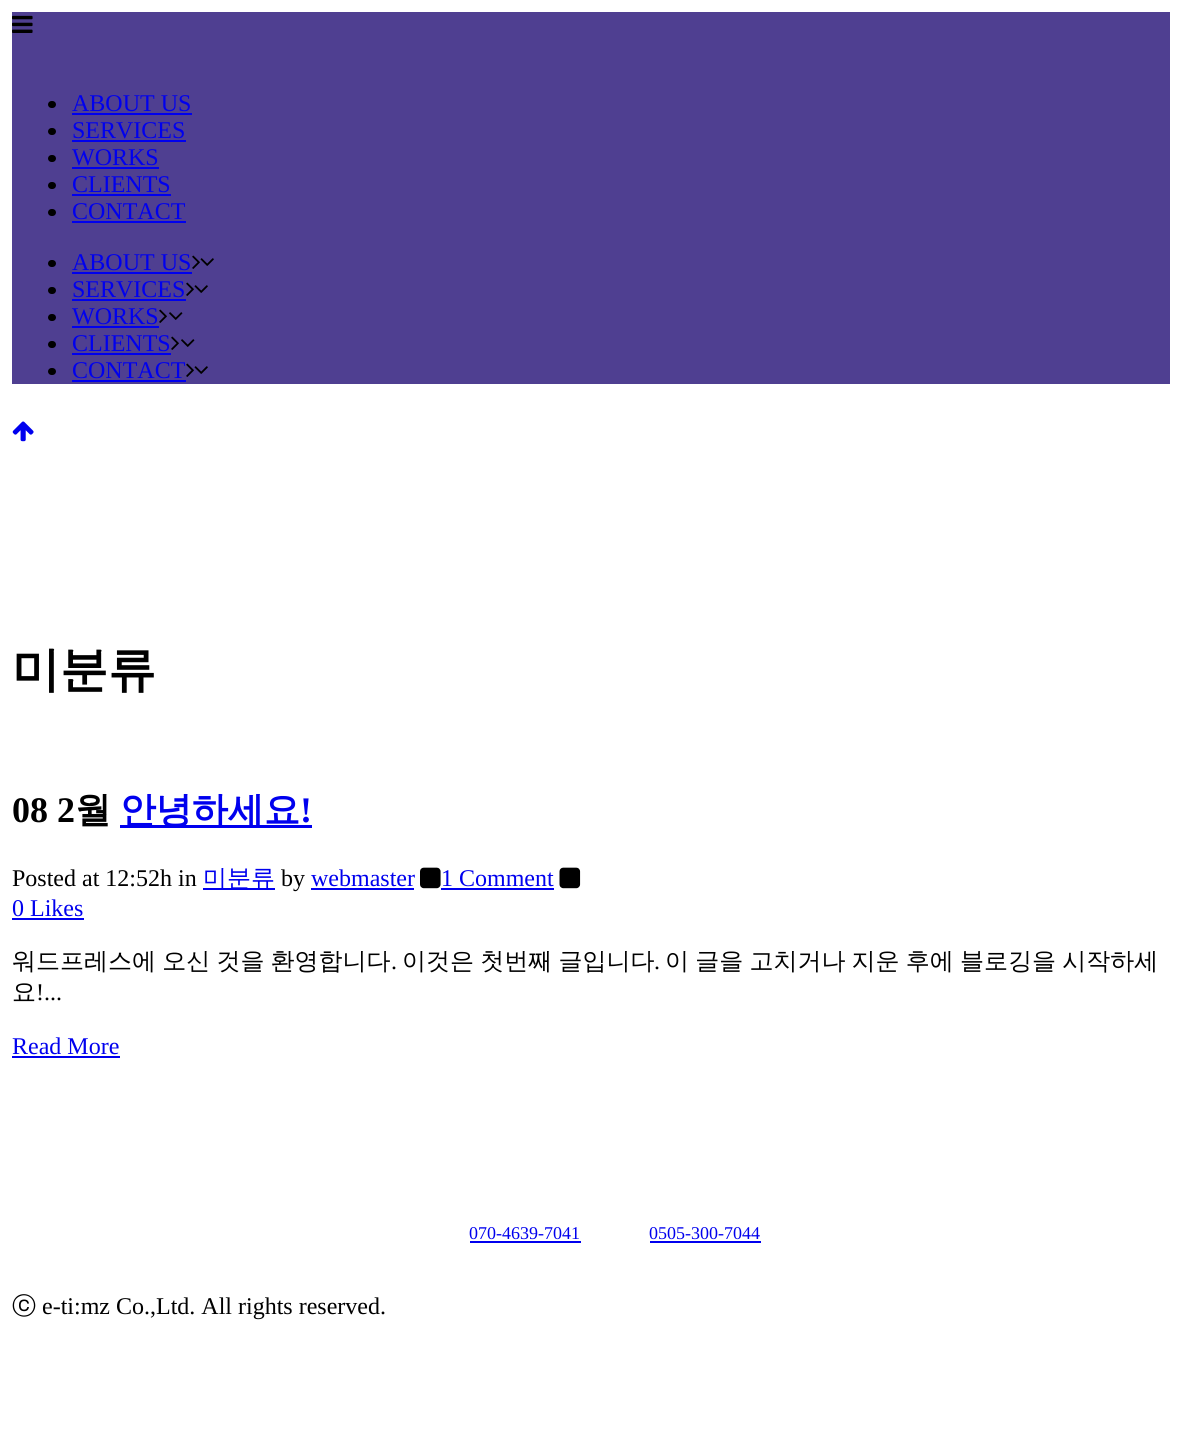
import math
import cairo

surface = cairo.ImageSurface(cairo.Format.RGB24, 1182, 1451)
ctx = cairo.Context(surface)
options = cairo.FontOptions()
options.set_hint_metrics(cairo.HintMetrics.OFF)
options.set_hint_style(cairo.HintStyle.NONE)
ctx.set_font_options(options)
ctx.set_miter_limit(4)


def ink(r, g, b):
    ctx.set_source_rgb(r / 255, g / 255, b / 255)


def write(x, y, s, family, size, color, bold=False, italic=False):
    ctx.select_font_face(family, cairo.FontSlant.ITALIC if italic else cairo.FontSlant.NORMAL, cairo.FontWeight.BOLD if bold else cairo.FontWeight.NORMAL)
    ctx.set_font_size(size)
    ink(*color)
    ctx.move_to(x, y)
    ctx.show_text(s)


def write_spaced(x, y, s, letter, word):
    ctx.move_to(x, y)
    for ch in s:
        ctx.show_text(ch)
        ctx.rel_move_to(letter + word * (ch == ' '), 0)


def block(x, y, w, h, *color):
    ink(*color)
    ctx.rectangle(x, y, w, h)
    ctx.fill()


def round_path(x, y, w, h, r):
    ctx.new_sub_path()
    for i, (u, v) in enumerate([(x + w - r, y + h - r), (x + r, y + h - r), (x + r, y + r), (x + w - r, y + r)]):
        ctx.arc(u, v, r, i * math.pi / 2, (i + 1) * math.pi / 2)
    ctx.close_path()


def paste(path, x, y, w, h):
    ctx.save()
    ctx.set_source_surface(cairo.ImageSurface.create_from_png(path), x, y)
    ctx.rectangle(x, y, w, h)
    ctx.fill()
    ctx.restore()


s1 = dict(family="Liberation Serif", size=24, color=(0, 0, 238))
s2 = dict(family="WenQuanYi Zen Hei", size=48, color=(0, 0, 0), bold=True)
s3 = dict(family="Liberation Serif", size=36, color=(0, 0, 0), bold=True)
s4 = dict(family="WenQuanYi Zen Hei", size=36, color=(0, 0, 0), bold=True)
s5 = dict(family="WenQuanYi Zen Hei", size=36, color=(0, 0, 238), bold=True)
s6 = dict(family="Liberation Serif", size=36, color=(0, 0, 238), bold=True)
s7 = dict(family="Liberation Serif", size=24, color=(0, 0, 0))
s8 = dict(family="WenQuanYi Zen Hei Medium", size=24, color=(0, 0, 238))
s9 = dict(family="WenQuanYi Zen Hei Medium", size=24, color=(0, 0, 0))
s10 = dict(family="Liberation Serif", size=18, color=(0, 0, 238))

ink(255, 255, 255)
ctx.paint()
block(12, 12, 1158, 372, 79, 63, 145)
paste("pic1.png", 12, 15, 21, 18)
ink(0, 0, 0)
round_path(48, 101, 8, 7, 3.5)
ctx.fill()
write(72, 111, "ABOUT US", **s1)
block(72, 113, 120, 2, 0, 0, 238)
ink(0, 0, 0)
round_path(48, 128, 8, 7, 3.5)
ctx.fill()
write(72, 138, "SERVICES", **s1)
block(72, 140, 114, 2, 0, 0, 238)
ink(0, 0, 0)
round_path(48, 155, 8, 7, 3.5)
ctx.fill()
write(72, 165, "WORKS", **s1)
block(72, 167, 87, 2, 0, 0, 238)
ink(0, 0, 0)
round_path(48, 182, 8, 7, 3.5)
ctx.fill()
write(72, 192, "CLIENTS", **s1)
block(72, 194, 99, 2, 0, 0, 238)
ink(0, 0, 0)
round_path(48, 209, 8, 7, 3.5)
ctx.fill()
write(72, 219, "CONTACT", **s1)
block(72, 221, 114, 2, 0, 0, 238)
ink(0, 0, 0)
round_path(48, 260, 8, 7, 3.5)
ctx.fill()
write(72, 270, "ABOUT US", **s1)
block(72, 272, 120, 2, 0, 0, 238)
paste("pic2.png", 192, 255, 8, 14)
paste("pic3.png", 200, 258, 14, 8)
ink(0, 0, 0)
round_path(48, 287, 8, 7, 3.5)
ctx.fill()
write(72, 297, "SERVICES", **s1)
block(72, 299, 114, 2, 0, 0, 238)
paste("pic2.png", 186, 282, 8, 14)
paste("pic3.png", 194, 285, 14, 8)
ink(0, 0, 0)
round_path(48, 314, 8, 7, 3.5)
ctx.fill()
write(72, 324, "WORKS", **s1)
block(72, 326, 87, 2, 0, 0, 238)
paste("pic2.png", 159, 309, 8, 14)
paste("pic4.png", 169, 312, 14, 8)
ink(0, 0, 0)
round_path(48, 341, 8, 7, 3.5)
ctx.fill()
write(72, 351, "CLIENTS", **s1)
block(72, 353, 99, 2, 0, 0, 238)
paste("pic2.png", 171, 336, 8, 14)
paste("pic4.png", 181, 339, 14, 8)
ink(0, 0, 0)
round_path(48, 368, 8, 7, 3.5)
ctx.fill()
write(72, 378, "CONTACT", **s1)
block(72, 380, 114, 2, 0, 0, 238)
paste("pic2.png", 186, 363, 8, 14)
paste("pic3.png", 194, 366, 14, 8)
paste("pic5.png", 12, 421, 22, 21)
write(12, 686, "미분류", **s2)
write(12, 822, "08 2", **s3)
write(75, 822, "월", **s4)
block(120, 825, 192, 3, 0, 0, 238)
write(120, 822, "안녕하세요", **s5)
write(300, 822, "!", **s6)
write(12, 886, "Posted at 12:52h in", **s7)
block(203, 888, 72, 2, 0, 0, 238)
write(203, 886, "미분류", **s8)
write(281, 886, "by", **s7)
write(311, 886, "webmaster", **s1)
block(311, 888, 103, 2, 0, 0, 238)
paste("pic6.png", 420, 867, 21, 22)
write(441, 886, "1 Comment", **s1)
block(441, 888, 113, 2, 0, 0, 238)
paste("pic7.png", 559, 867, 22, 22)
write(12, 916, "0 Likes", **s1)
block(12, 918, 72, 2, 0, 0, 238)
ctx.select_font_face("WenQuanYi Zen Hei Medium")
ink(0, 0, 0)
write_spaced(12, 969, "워드프레스에 오신 것을 환영합니다", 0, -1)
write(391, 969, ".", **s7)
ctx.select_font_face("WenQuanYi Zen Hei Medium")
write_spaced(402, 969, "이것은 첫번째 글입니다", 0, -1)
write(654, 969, ".", **s7)
ctx.select_font_face("WenQuanYi Zen Hei Medium")
write_spaced(665, 969, "이 글을 고치거나 지운 후에 블로깅을 시작하세", 0, -1)
write(12, 1000, "요", **s9)
write(36, 1000, "!...", **s7)
write(12, 1054, "Read More", **s1)
block(12, 1056, 108, 2, 0, 0, 238)
write(469, 1239, "070-4639-7041", **s10)
block(470, 1241, 111, 2, 0, 0, 238)
write(649, 1239, "0505-300-7044", **s10)
block(650, 1241, 111, 2, 0, 0, 238)
write(12, 1314, "ⓒ", **s9)
write(42, 1314, "e-ti:mz Co.,Ltd. All rights reserved.", **s7)
surface.write_to_png("screenshot.png")
